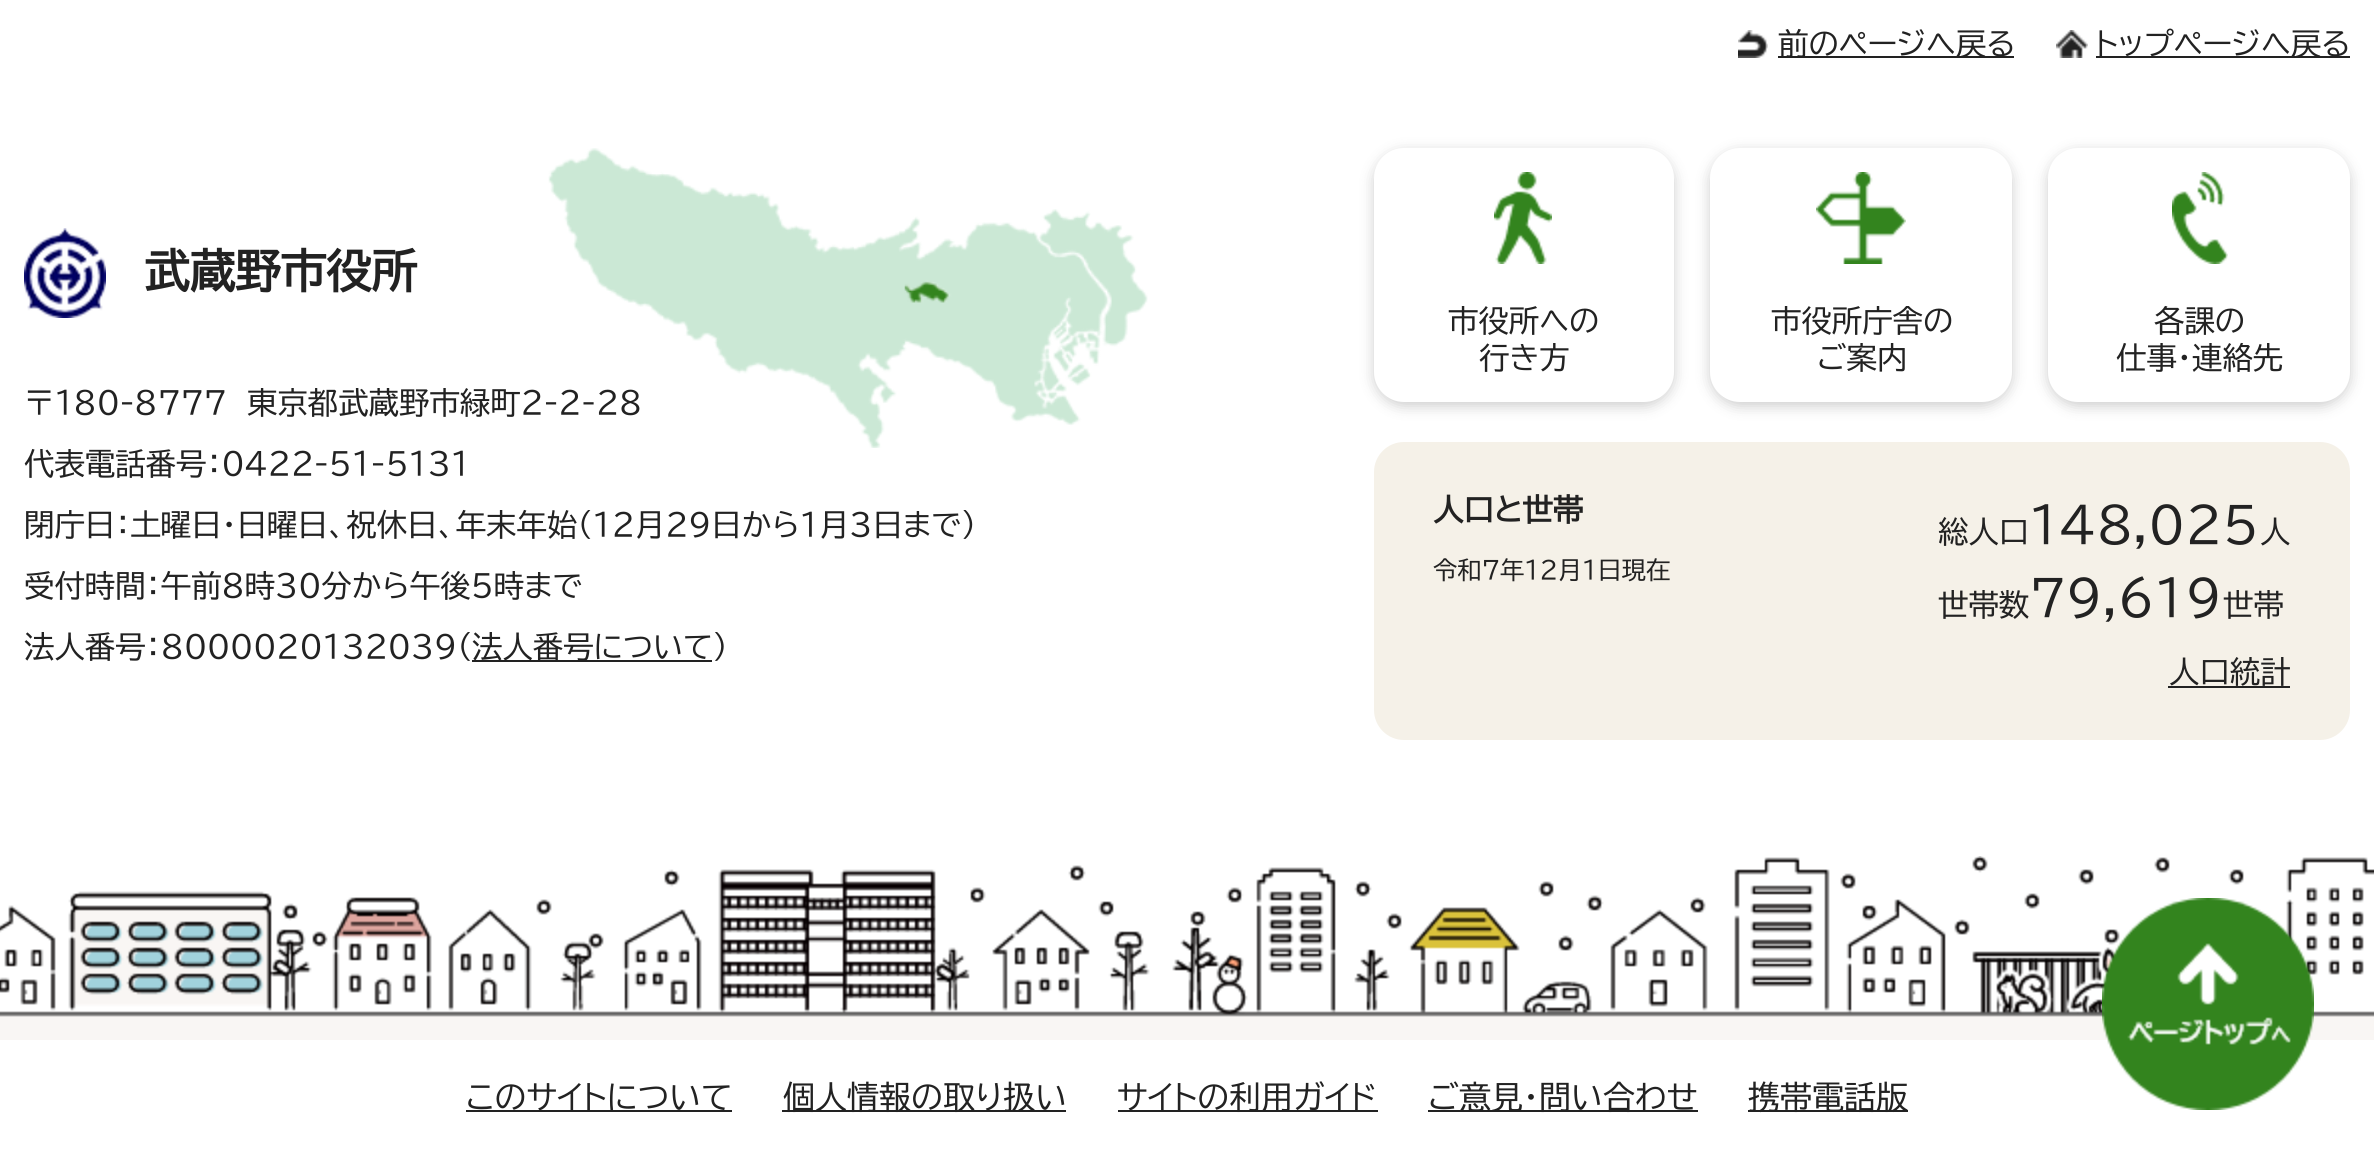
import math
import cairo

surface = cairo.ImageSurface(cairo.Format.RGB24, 2374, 1160)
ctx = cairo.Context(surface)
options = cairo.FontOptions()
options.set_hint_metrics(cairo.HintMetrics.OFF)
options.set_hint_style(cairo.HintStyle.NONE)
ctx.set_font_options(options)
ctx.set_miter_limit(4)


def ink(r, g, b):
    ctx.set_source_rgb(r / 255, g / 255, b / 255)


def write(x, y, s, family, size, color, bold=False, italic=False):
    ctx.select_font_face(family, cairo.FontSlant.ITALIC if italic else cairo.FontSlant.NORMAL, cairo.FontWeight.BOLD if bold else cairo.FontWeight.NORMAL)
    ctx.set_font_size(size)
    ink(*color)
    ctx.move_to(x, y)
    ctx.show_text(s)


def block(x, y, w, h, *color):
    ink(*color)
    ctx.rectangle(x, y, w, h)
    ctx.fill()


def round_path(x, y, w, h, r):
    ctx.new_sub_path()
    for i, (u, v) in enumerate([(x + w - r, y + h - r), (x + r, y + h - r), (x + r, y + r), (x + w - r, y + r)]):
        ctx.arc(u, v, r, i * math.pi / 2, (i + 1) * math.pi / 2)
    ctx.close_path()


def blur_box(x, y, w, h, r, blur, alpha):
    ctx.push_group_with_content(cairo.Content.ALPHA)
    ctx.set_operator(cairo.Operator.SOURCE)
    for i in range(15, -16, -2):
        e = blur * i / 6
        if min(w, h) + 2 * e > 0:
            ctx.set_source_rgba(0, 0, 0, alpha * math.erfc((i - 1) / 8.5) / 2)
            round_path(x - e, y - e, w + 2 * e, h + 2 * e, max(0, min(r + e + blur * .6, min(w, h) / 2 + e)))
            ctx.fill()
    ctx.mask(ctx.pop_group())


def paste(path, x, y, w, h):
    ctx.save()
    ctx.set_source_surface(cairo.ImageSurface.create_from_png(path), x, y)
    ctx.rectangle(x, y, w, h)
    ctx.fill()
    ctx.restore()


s1 = dict(family="BIZ UDPGothic", size=30.4, color=(34, 34, 34))
s2 = dict(family="BIZ UDPGothic", size=45.5, color=(34, 34, 34), bold=True)
s3 = dict(family="BIZ UDPGothic", size=30.4, color=(34, 34, 34), bold=True)
s4 = dict(family="BIZ UDPGothic", size=24.25, color=(34, 34, 34))
s5 = dict(family="BIZ UDPGothic", size=48.5, color=(34, 34, 34))
s6 = dict(family="BIZ UDPGothic", size=32, color=(34, 34, 34))

ink(255, 255, 255)
ctx.paint()
paste("pic1.png", 1738, 30, 30, 28)
block(1778, 56, 236, 2, 34, 34, 34)
write(1778, 55, "前のページへ戻る", **s1)
paste("pic2.png", 2056, 30, 32, 28)
block(2096, 56, 254, 2, 34, 34, 34)
write(2095, 55, "トップページへ戻る", **s1)
paste("pic4.png", 0, 856, 2374, 184)
paste("pic3.png", 2102, 898, 212, 212)
paste("pic5.png", 548, 148, 600, 300)
paste("pic6.png", 24, 228, 82, 90)
write(144, 288, "武蔵野市役所", **s2)
write(24, 414, "〒180-8777　東京都武蔵野市緑町2-2-28", **s1)
write(24, 475, "代表電話番号：0422-51-5131", **s1)
write(24, 536, "閉庁日：土曜日・日曜日、祝休日、年末年始（12月29日から1月3日まで）", **s1)
write(24, 597, "受付時間：午前8時30分から午後5時まで", **s1)
write(24, 658, "法人番号：8000020132039（", **s1)
block(472, 660, 240, 2, 34, 34, 34)
write(472, 658, "法人番号について）", **s1)
ink(0, 0, 0)
blur_box(1374, 152, 300, 254, 30, 7, 0.2)
ink(255, 255, 255)
round_path(1374, 148, 300, 254, 30)
ctx.fill()
paste("pic7.png", 1494, 172, 58, 92)
write(1448, 332, "市役所への", **s1)
write(1479, 369, "行き方", **s1)
ink(0, 0, 0)
blur_box(1710, 152, 302, 254, 30, 7, 0.2)
ink(255, 255, 255)
round_path(1710, 148, 302, 254, 30)
ctx.fill()
paste("pic8.png", 1816, 172, 90, 92)
write(1771, 332, "市役所庁舎の", **s1)
write(1817, 369, "ご案内", **s1)
ink(0, 0, 0)
blur_box(2048, 152, 302, 254, 30, 7, 0.2)
ink(255, 255, 255)
round_path(2048, 148, 302, 254, 30)
ctx.fill()
paste("pic9.png", 2172, 172, 56, 92)
write(2154, 332, "各課の", **s1)
write(2116, 369, "仕事・連絡先", **s1)
ink(245, 241, 232)
round_path(1374, 442, 976, 298, 30)
ctx.fill()
write(1433, 521, "人口と世帯", **s3)
write(1433, 579, "令和7年12月1日現在", **s4)
write(1938, 543, "総人口", **s1)
write(2029, 543, "148,025", **s5)
write(2260, 543, "人", **s1)
write(1938, 616, "世帯数", **s1)
write(2029, 616, "79,619", **s5)
write(2223, 616, "世帯", **s1)
write(2169, 683, "人口統計", **s1)
block(2168, 686, 122, 2, 34, 34, 34)
block(466, 1110, 266, 2, 34, 34, 34)
write(466, 1109, "このサイトについて", **s6)
block(782, 1110, 284, 2, 34, 34, 34)
write(783, 1109, "個人情報の取り扱い", **s6)
block(1118, 1110, 260, 2, 34, 34, 34)
write(1117, 1109, "サイトの利用ガイド", **s6)
block(1428, 1110, 270, 2, 34, 34, 34)
write(1428, 1109, "ご意見・問い合わせ", **s6)
block(1748, 1110, 160, 2, 34, 34, 34)
write(1748, 1109, "携帯電話版", **s6)
surface.write_to_png("screenshot.png")
